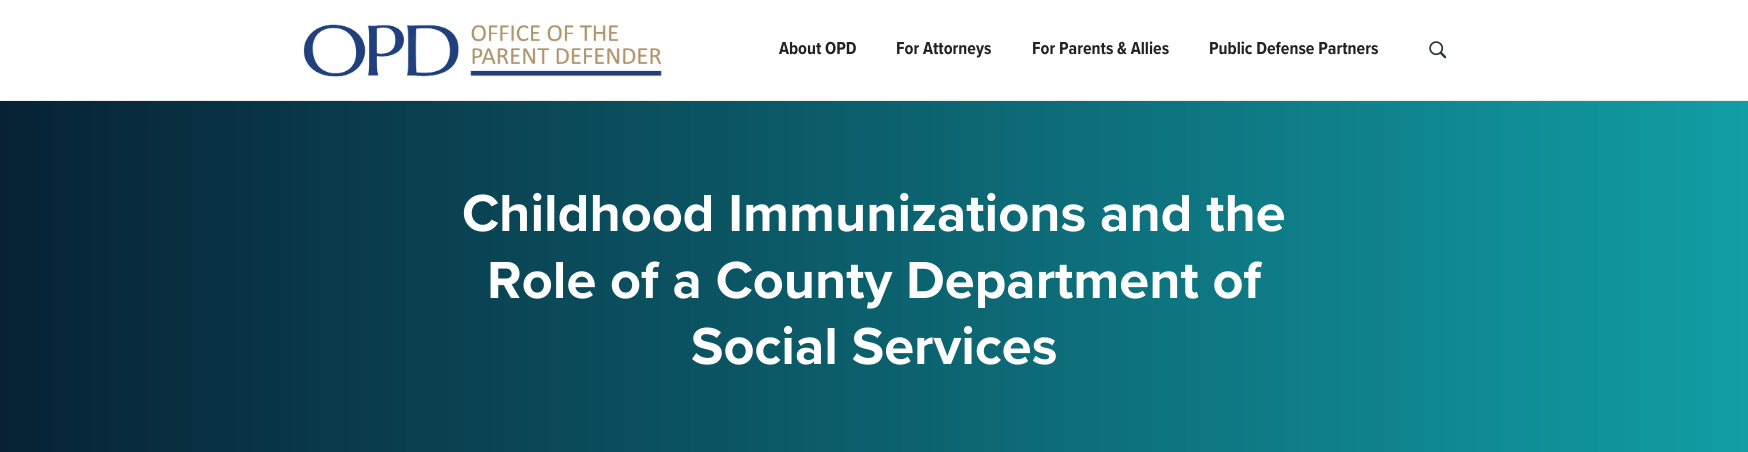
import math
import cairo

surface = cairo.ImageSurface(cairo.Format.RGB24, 1748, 452)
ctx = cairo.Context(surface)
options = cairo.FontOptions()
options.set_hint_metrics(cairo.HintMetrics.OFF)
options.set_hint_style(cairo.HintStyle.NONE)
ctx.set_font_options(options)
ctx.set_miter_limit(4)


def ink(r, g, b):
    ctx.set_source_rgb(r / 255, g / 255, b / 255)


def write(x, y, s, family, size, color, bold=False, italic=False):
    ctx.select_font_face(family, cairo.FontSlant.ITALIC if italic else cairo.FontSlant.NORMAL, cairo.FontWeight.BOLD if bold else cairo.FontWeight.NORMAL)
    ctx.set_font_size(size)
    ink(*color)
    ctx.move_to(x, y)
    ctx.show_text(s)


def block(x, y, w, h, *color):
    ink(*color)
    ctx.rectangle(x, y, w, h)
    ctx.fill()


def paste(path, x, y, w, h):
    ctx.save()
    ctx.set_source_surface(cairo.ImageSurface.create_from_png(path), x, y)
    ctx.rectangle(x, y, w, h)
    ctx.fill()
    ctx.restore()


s1 = dict(family="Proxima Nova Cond", size=18, color=(34, 34, 34), bold=True)
s2 = dict(family="Proxima Nova", size=54, color=(255, 255, 255), bold=True)

ink(255, 255, 255)
ctx.paint()
block(0, 100, 1748, 1, 238, 239, 240)
paste("pic1.png", 303, 24, 359, 53)
write(779, 54, "About OPD", **s1)
write(896, 54, "For Attorneys", **s1)
write(1032, 54, "For Parents & Allies", **s1)
write(1209, 54, "Public Defense Partners", **s1)
paste("pic2.png", 1429, 41, 17, 18)
gradient = cairo.LinearGradient(0, 311, 1748, 311)
gradient.add_color_stop_rgba(0, 0.027, 0.133, 0.208, 1)
gradient.add_color_stop_rgba(1, 0.067, 0.616, 0.643, 1)
ctx.set_source(gradient)
ctx.rectangle(0, 101, 1748, 351)
ctx.fill()
write(462, 231, "Childhood Immunizations and the", **s2)
write(487, 298, "Role of a County Department of", **s2)
write(691, 364, "Social Services", **s2)
surface.write_to_png("screenshot.png")
